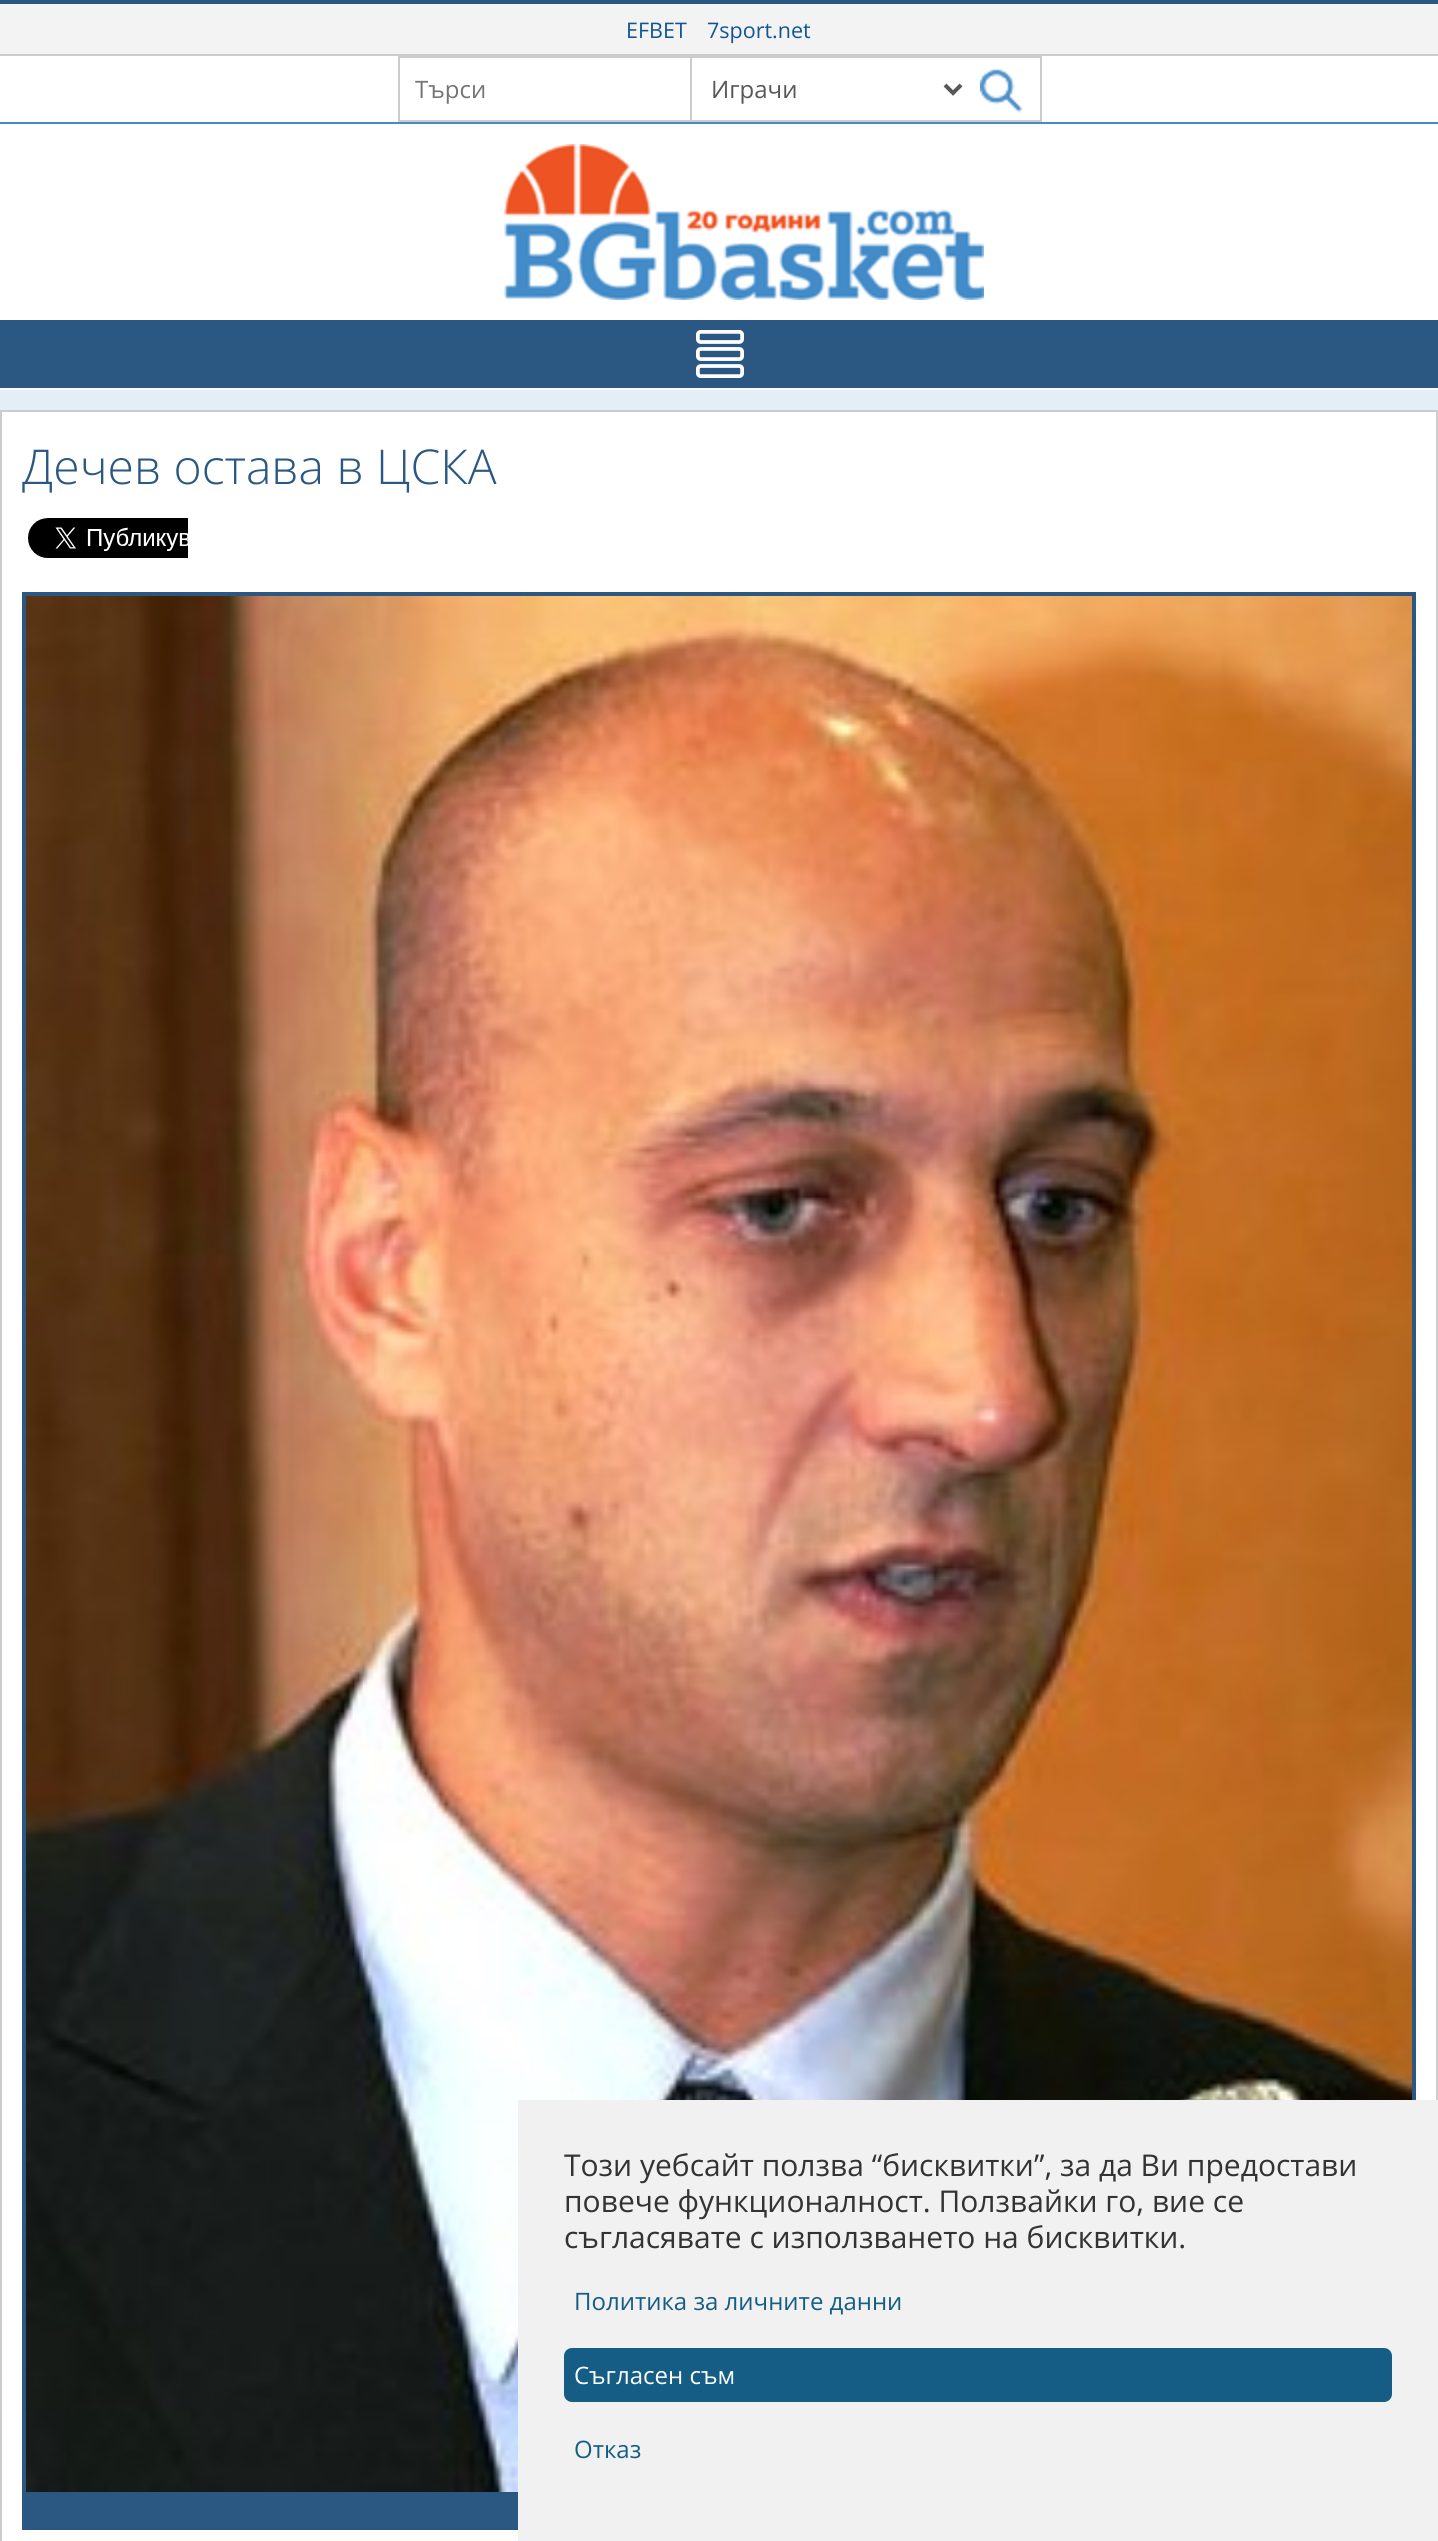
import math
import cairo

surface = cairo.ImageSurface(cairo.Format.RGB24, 1438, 2541)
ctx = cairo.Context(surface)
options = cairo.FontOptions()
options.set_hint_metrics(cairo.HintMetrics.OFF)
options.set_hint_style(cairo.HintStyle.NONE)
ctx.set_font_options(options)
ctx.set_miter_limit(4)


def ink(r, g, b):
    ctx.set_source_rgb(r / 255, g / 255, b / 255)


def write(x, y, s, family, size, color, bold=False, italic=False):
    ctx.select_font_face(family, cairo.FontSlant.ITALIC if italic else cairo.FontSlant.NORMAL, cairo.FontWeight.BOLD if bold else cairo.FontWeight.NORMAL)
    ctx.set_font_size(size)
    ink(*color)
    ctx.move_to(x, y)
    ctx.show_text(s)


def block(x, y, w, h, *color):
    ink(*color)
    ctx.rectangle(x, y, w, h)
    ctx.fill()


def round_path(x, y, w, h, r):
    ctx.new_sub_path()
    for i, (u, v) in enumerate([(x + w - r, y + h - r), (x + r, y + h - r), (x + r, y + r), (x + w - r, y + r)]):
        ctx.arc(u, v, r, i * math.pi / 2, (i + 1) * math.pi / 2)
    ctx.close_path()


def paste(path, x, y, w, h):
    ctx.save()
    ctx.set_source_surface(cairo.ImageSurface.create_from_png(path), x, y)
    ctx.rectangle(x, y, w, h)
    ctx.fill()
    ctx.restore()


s1 = dict(family="Open Sans", size=21.5, color=(17, 85, 148))
s2 = dict(family="Open Sans", size=24, color=(117, 117, 117))
s3 = dict(family="Open Sans", size=24, color=(87, 87, 87))
s4 = dict(family="Open Sans Light", size=48, color=(43, 87, 131))
s5 = dict(family="Open Sans", size=30, color=(51, 51, 51))
s6 = dict(family="Open Sans", size=24, color=(21, 93, 132))
s7 = dict(family="Open Sans", size=24, color=(255, 255, 255))

ink(255, 255, 255)
ctx.paint()
paste("pic1.png", 0, 390, 1438, 20)
block(0, 4, 1438, 50, 243, 243, 243)
block(0, 0, 1438, 4, 43, 87, 131)
block(0, 54, 1438, 2, 204, 204, 204)
write(626, 38, "EFBET", **s1)
write(707, 38, "7sport.net", **s1)
block(0, 122, 1438, 2, 69, 140, 199)
ctx.rectangle(399, 57, 642, 64)
ink(204, 204, 204)
ctx.stroke()
write(415, 98, "Търси", **s2)
block(690, 58, 2, 62, 204, 204, 204)
ctx.new_path()
ctx.move_to(945, 85)
ctx.line_to(953, 93)
ctx.line_to(961, 85)
ink(87, 87, 87)
ctx.set_line_width(4)
ctx.stroke()
write(711, 98, "Играчи", **s3)
paste("pic2.png", 980, 69, 43, 44)
paste("pic3.png", 504, 144, 480, 156)
block(0, 320, 1438, 68, 43, 87, 131)
paste("pic4.png", 696, 330, 48, 48)
ctx.rectangle(1, 411, 1436, 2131)
ink(204, 204, 204)
ctx.set_line_width(2)
ctx.stroke()
write(22, 484, "Дечев остава в ЦСКА", **s4)
paste("pic5.png", 28, 518, 160, 40)
block(22, 592, 1394, 1938, 43, 87, 131)
paste("pic6.png", 26, 596, 1386, 1896)
block(518, 2100, 920, 441, 241, 241, 241)
write(564, 2176, "Този уебсайт ползва “бисквитки”, за да Ви предостави", **s5)
write(564, 2212, "повече функционалност. Ползвайки го, вие се", **s5)
write(564, 2248, "съгласявате с използването на бисквитки.", **s5)
write(574, 2310, "Политика за личните данни", **s6)
round_path(564, 2348, 828, 54, 8)
ctx.fill()
write(574, 2384, "Съгласен съм", **s7)
write(574, 2458, "Отказ", **s6)
surface.write_to_png("screenshot.png")
